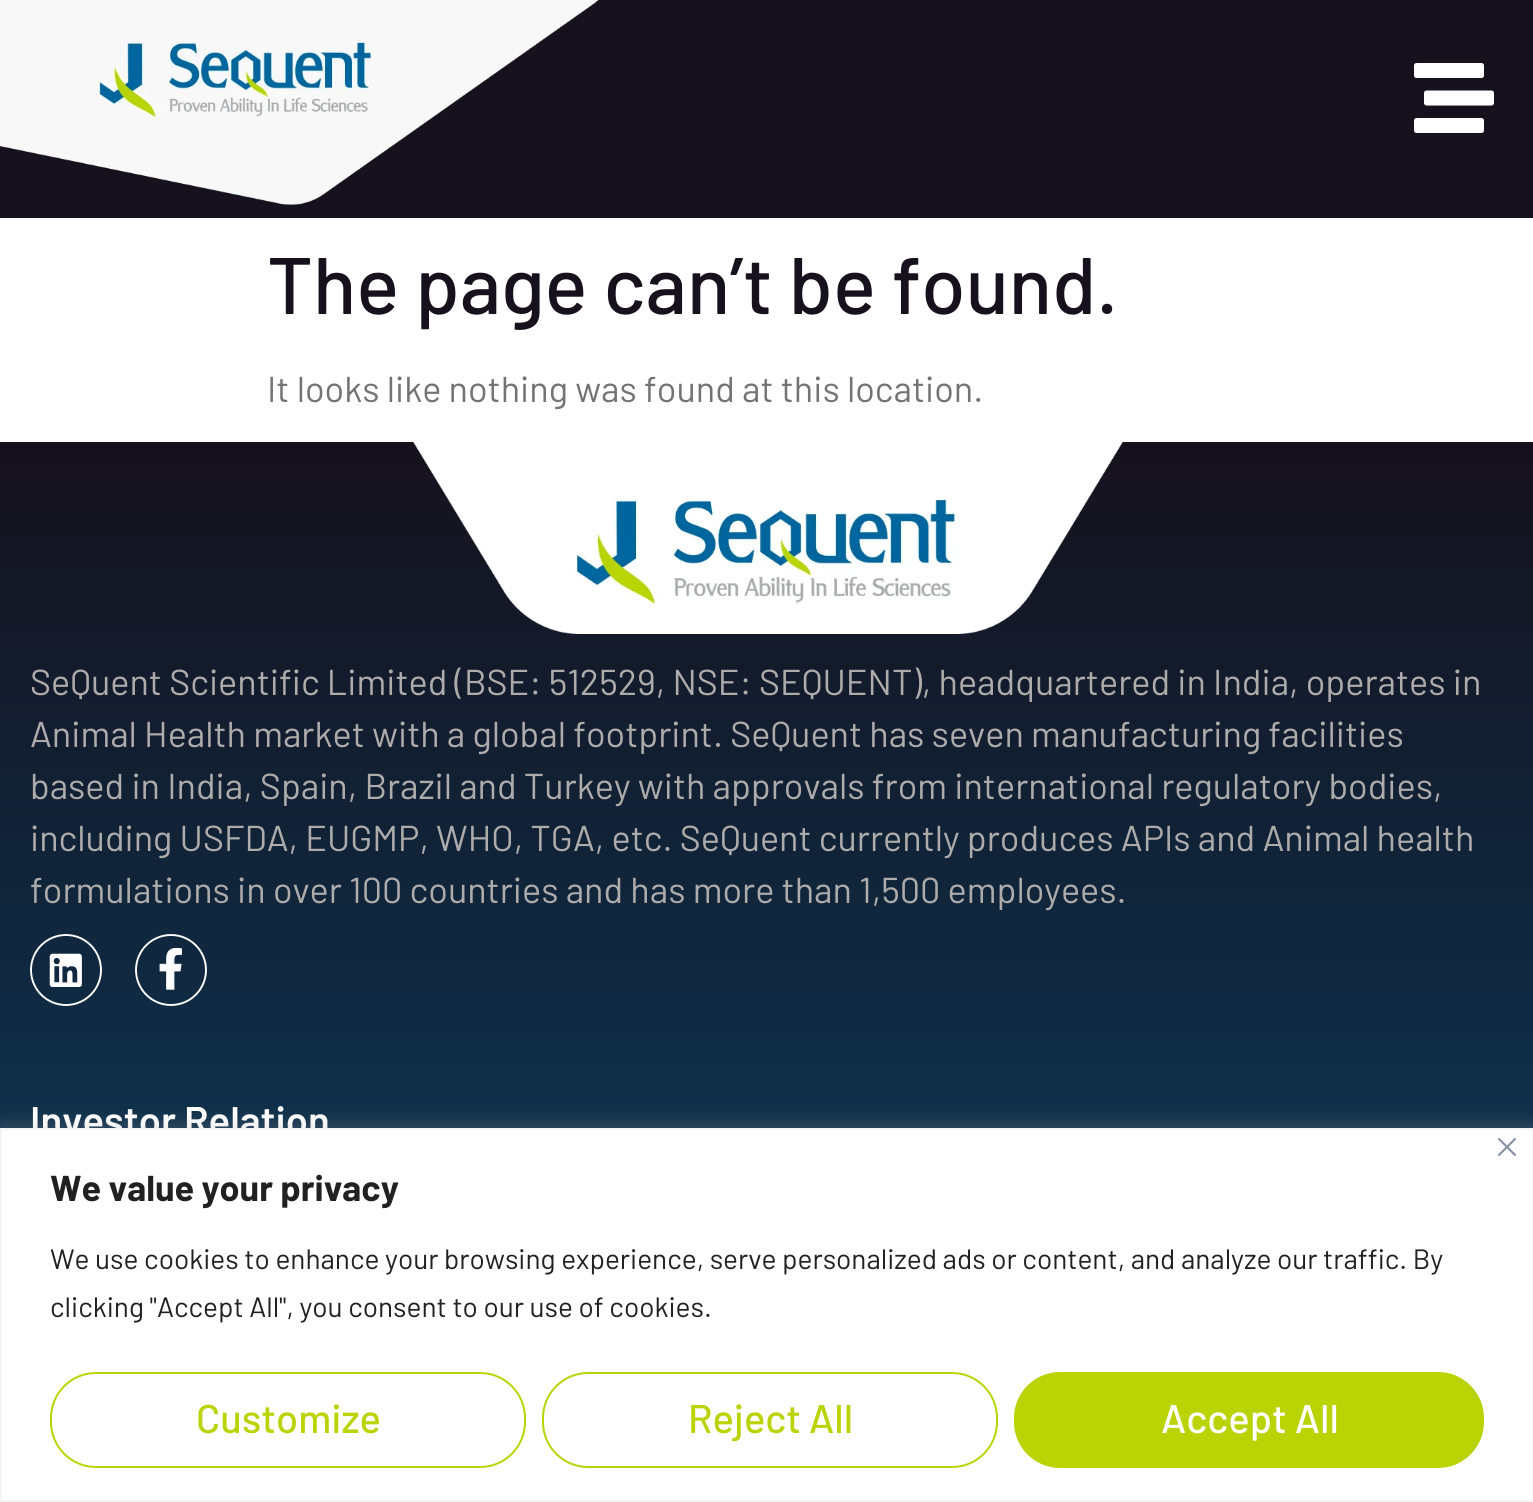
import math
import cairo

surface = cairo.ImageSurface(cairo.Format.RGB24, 1533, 1502)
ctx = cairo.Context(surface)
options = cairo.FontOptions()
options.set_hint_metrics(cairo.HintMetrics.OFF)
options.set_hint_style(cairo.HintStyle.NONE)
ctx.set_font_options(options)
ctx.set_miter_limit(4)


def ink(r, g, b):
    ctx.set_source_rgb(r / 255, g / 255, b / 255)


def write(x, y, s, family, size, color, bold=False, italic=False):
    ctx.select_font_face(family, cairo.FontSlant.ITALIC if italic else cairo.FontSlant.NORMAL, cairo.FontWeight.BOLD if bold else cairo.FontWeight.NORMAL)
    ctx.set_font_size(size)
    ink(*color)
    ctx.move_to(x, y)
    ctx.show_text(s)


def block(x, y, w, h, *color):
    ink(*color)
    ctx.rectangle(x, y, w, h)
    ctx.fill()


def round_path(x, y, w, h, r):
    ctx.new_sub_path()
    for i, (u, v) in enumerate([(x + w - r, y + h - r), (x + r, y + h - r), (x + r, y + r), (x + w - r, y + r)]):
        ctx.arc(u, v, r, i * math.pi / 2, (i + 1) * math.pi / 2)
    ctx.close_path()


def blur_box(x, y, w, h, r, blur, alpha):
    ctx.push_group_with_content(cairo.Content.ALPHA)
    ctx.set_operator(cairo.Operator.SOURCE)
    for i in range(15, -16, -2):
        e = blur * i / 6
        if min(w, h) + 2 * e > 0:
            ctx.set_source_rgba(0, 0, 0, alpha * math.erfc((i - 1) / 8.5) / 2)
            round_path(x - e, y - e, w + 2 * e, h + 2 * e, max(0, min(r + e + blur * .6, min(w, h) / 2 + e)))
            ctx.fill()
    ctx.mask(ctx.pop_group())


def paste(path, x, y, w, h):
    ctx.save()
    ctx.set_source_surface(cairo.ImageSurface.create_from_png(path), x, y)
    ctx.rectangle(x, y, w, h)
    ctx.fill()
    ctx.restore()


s1 = dict(family="Barlow Medium", size=80, color=(22, 17, 28))
s2 = dict(family="Barlow", size=36, color=(115, 115, 115))
s3 = dict(family="Barlow", size=36, color=(174, 171, 171))
s4 = dict(family="Barlow SemiBold", size=40, color=(255, 255, 255))
s5 = dict(family="Barlow", size=36, color=(33, 33, 33), bold=True)
s6 = dict(family="Barlow", size=28, color=(33, 33, 33))
s7 = dict(family="Barlow Medium", size=40, color=(185, 211, 5))
s8 = dict(family="Barlow Medium", size=40, color=(255, 255, 255))

ink(255, 255, 255)
ctx.paint()
block(0, 0, 1533, 218, 22, 17, 28)
paste("pic1.png", 0, 0, 599, 205)
paste("pic2.png", 1414, 63, 80, 70)
write(267, 314, "The page can’t be found.", **s1)
write(267, 402, "It looks like nothing was found at this location.", **s2)
gradient = cairo.LinearGradient(767, 442, 767, 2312)
gradient.add_color_stop_rgba(0, 0.086, 0.067, 0.11, 1)
gradient.add_color_stop_rgba(1, 0, 0.392, 0.608, 1)
ctx.set_source(gradient)
ctx.rectangle(0, 442, 1533, 686)
ctx.fill()
paste("pic3.png", 413, 442, 710, 192)
write(30, 695, "SeQuent Scientific Limited (BSE: 512529, NSE: SEQUENT), headquartered in India, operates in", **s3)
write(30, 747, "Animal Health market with a global footprint. SeQuent has seven manufacturing facilities", **s3)
write(30, 799, "based in India, Spain, Brazil and Turkey with approvals from international regulatory bodies,", **s3)
write(30, 851, "including USFDA, EUGMP, WHO, TGA, etc. SeQuent currently produces APIs and Animal health", **s3)
write(30, 903, "formulations in over 100 countries and has more than 1,500 employees.", **s3)
paste("pic4.png", 30, 934, 72, 72)
paste("pic5.png", 135, 934, 72, 72)
write(30, 1135, "Investor Relation", **s4)
ink(172, 171, 171)
blur_box(0, 1126, 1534, 374, 0, 10, 0.3)
ink(255, 255, 255)
ctx.rectangle(1, 1129, 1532, 372)
ctx.fill_preserve()
ink(244, 244, 244)
ctx.stroke()
paste("pic6.png", 1498, 1138, 18, 18)
write(50, 1201, "We value your privacy", **s5)
write(50, 1269, "We use cookies to enhance your browsing experience, serve personalized ads or content, and analyze our traffic. By", **s6)
write(50, 1317, "clicking \"Accept All\", you consent to our use of cookies.", **s6)
round_path(51, 1373, 474, 94, 45)
ink(185, 211, 5)
ctx.stroke()
write(196, 1433, "Customize", **s7)
round_path(543, 1373, 454, 94, 45)
ctx.stroke()
write(688, 1433, "Reject All", **s7)
round_path(1015, 1373, 468, 94, 45)
ctx.fill_preserve()
ctx.stroke()
write(1161, 1433, "Accept All", **s8)
surface.write_to_png("screenshot.png")
